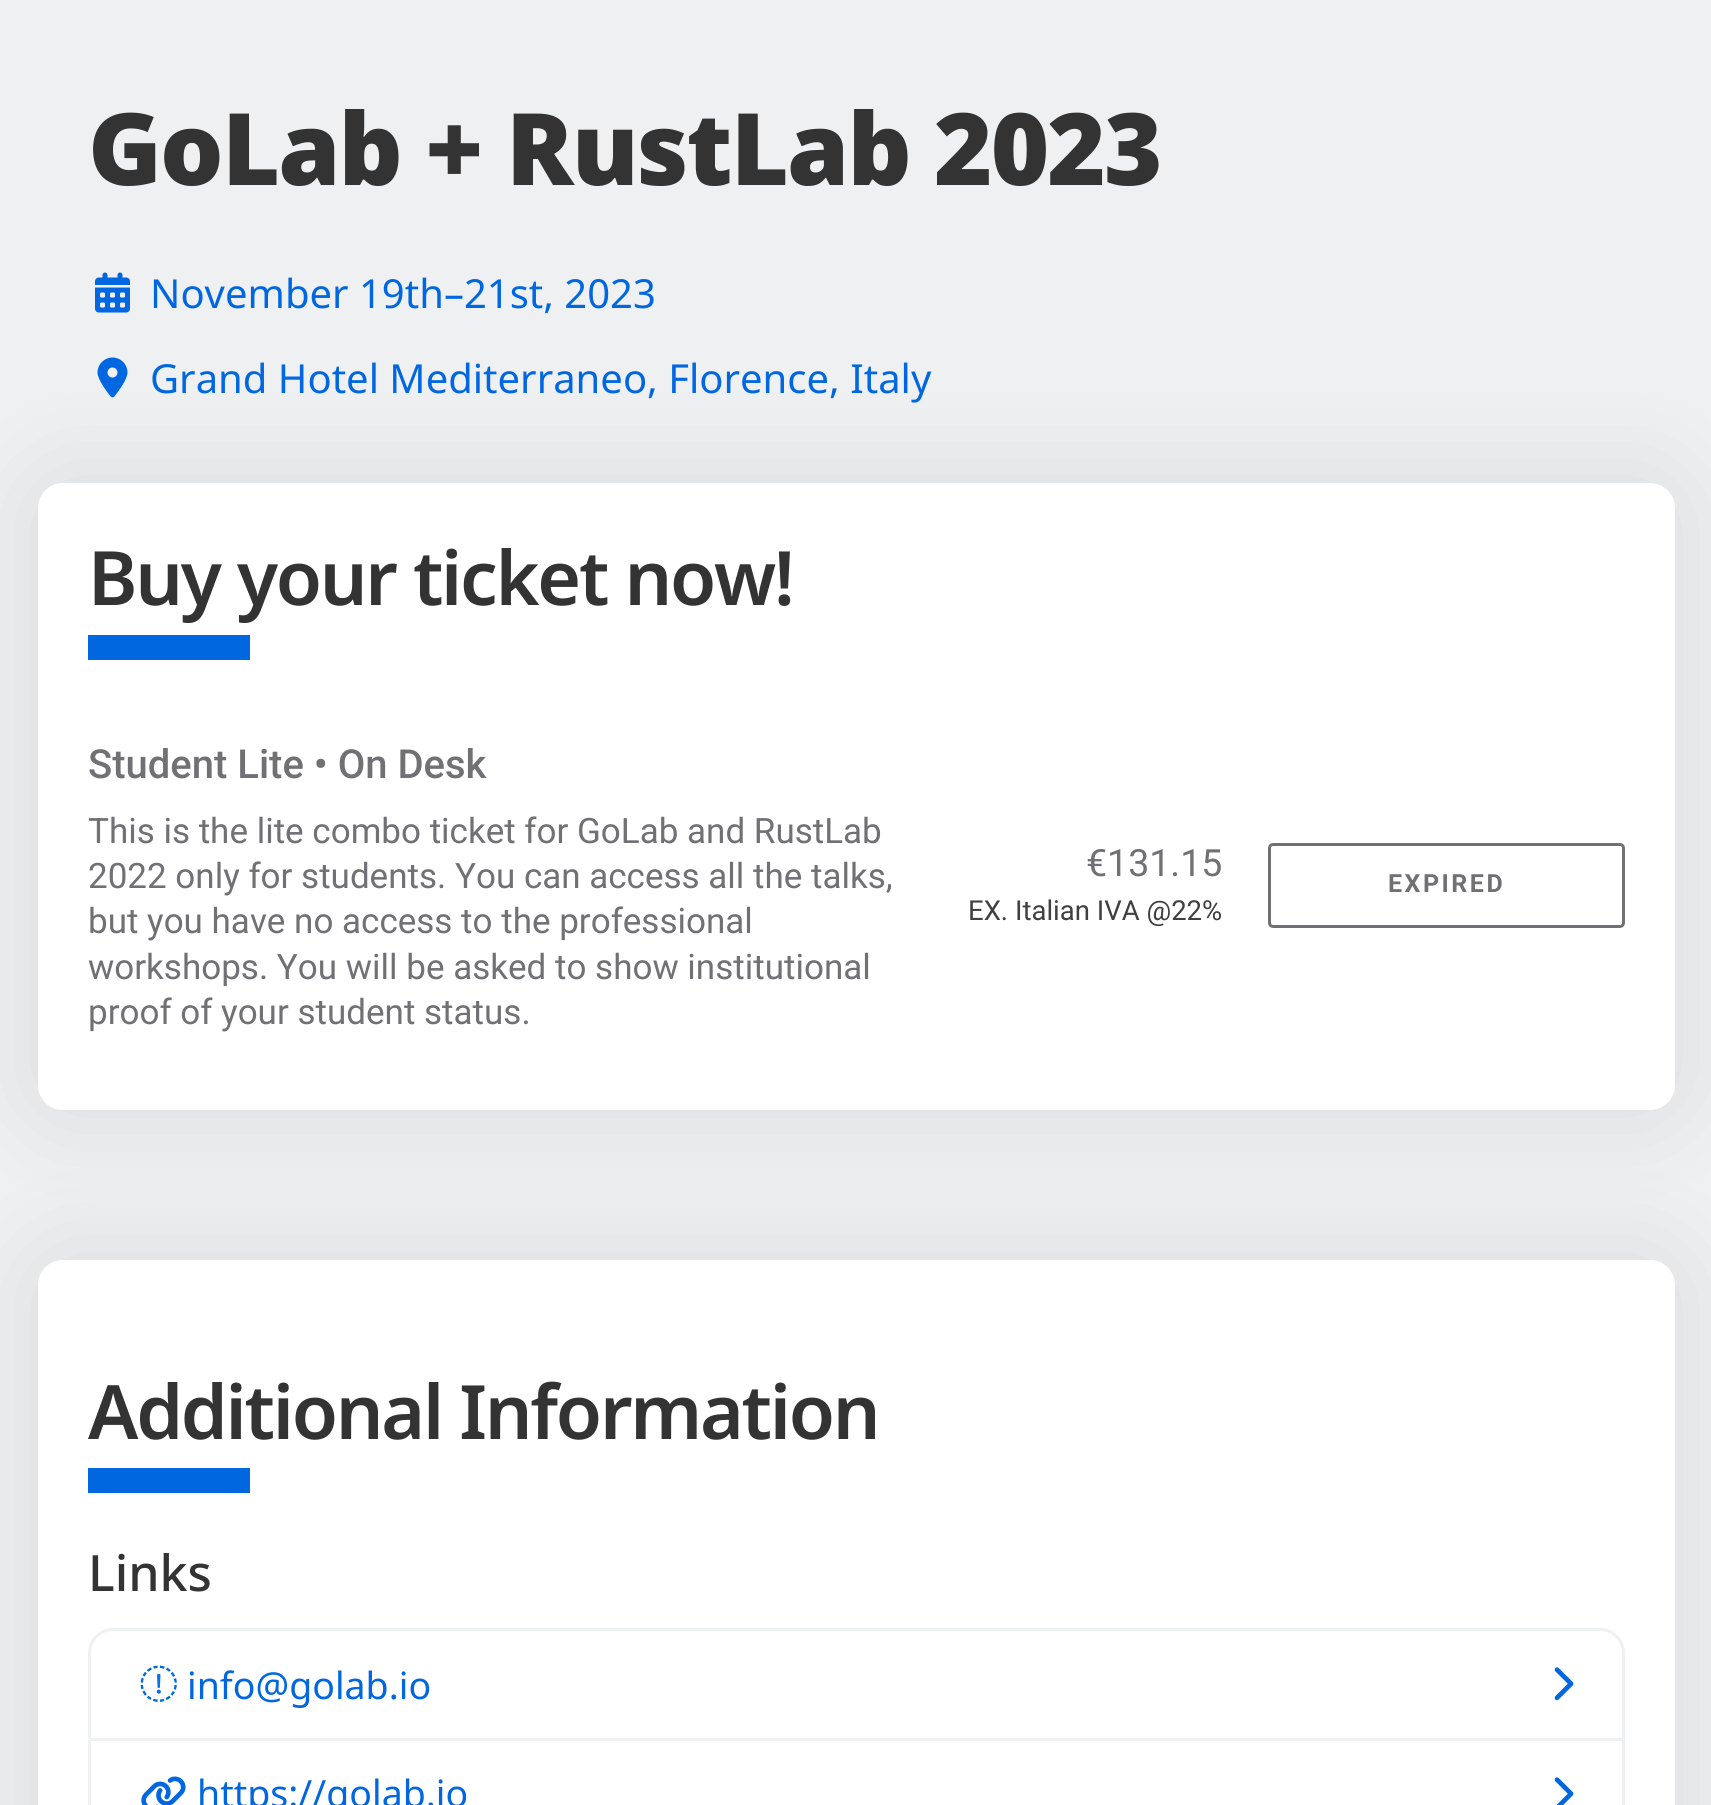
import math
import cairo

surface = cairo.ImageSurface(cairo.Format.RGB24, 1711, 1805)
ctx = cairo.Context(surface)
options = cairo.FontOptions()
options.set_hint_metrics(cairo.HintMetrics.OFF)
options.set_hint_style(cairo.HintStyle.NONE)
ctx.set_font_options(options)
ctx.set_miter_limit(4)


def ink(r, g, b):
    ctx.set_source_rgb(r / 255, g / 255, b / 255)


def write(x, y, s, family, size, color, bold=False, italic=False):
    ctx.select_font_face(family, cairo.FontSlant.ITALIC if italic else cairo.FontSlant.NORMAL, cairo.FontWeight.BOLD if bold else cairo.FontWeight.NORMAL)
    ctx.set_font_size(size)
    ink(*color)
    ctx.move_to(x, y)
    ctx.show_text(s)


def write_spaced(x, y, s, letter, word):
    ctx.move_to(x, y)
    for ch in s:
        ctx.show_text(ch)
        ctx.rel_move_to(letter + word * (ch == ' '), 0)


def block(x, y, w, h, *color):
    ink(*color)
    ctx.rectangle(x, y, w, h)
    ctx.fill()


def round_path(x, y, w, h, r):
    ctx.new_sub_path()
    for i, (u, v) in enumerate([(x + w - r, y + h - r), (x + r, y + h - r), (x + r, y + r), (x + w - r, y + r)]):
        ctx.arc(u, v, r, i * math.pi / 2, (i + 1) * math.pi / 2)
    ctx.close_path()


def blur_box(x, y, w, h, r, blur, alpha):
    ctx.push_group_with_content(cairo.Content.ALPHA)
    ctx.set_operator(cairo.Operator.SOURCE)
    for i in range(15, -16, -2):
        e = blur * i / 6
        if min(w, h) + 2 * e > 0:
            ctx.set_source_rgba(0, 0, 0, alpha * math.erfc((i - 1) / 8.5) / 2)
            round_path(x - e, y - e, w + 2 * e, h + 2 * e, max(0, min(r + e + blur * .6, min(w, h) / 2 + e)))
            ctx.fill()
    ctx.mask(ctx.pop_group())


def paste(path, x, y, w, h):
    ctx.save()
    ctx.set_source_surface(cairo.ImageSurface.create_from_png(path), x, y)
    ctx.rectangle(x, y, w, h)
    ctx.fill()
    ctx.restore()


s1 = dict(family="Noto Sans", size=40, color=(0, 103, 225))
s2 = dict(family="Roboto Medium", size=40, color=(113, 112, 117))
s3 = dict(family="Roboto", size=35, color=(113, 112, 117))
s4 = dict(family="Roboto", size=37.5, color=(113, 112, 117))
s5 = dict(family="Roboto", size=27.5, color=(64, 64, 64))
s6 = dict(family="Noto Sans Medium", size=50, color=(51, 51, 51))
s7 = dict(family="Noto Sans", size=37.5, color=(0, 103, 225))

ink(239, 240, 242)
ctx.paint()
ctx.select_font_face("Noto Sans Black")
ctx.set_font_size(100)
ink(51, 51, 51)
write_spaced(88, 185, "GoLab + RustLab 2023", -1.9, 0)
paste("pic1.png", 95, 272, 35, 41)
write(150, 308, "November 19th–21st, 2023", **s1)
ink(0, 0, 0)
blur_box(38, 483, 1637, 627, 25, 50, 0.1)
paste("pic2.png", 97, 357, 31, 41)
write(150, 393, "Grand Hotel Mediterraneo, Florence, Italy", **s1)
ink(255, 255, 255)
round_path(38, 483, 1637, 627, 25)
ctx.fill()
ctx.select_font_face("Noto Sans SemiBold")
ctx.set_font_size(75)
ink(51, 51, 51)
write_spaced(88, 605, "Buy your ticket now!", -2.25, 0)
block(88, 635, 162, 25, 0, 103, 225)
write(88, 778, "Student Lite • On Desk", **s2)
write(88, 843, "This is the lite combo ticket for GoLab and RustLab", **s3)
write(88, 888, "2022 only for students. You can access all the talks,", **s3)
write(88, 933, "but you have no access to the professional", **s3)
write(88, 979, "workshops. You will be asked to show institutional", **s3)
write(88, 1024, "proof of your student status.", **s3)
write(1086, 876, "€131.15", **s4)
write(968, 920, "EX. Italian IVA @22%", **s5)
round_path(1269.5, 844.5, 354, 82, 3.5)
ink(113, 112, 117)
ctx.set_line_width(3)
ctx.stroke()
ctx.select_font_face("Roboto", cairo.FontSlant.NORMAL, cairo.FontWeight.BOLD)
ctx.set_font_size(25)
write_spaced(1388, 892, "EXPIRED", 2.5, 0)
ink(0, 0, 0)
blur_box(38, 1260, 1637, 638, 25, 50, 0.1)
ink(255, 255, 255)
round_path(38, 1260, 1637, 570, 25)
ctx.fill()
ctx.select_font_face("Noto Sans SemiBold")
ctx.set_font_size(75)
ink(51, 51, 51)
write_spaced(88, 1439, "Additional Information", -2.25, 0)
block(88, 1468, 162, 25, 0, 103, 225)
write(88, 1591, "Links", **s6)
round_path(89.5, 1629.5, 1534, 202, 23.5)
ink(239, 240, 242)
ctx.stroke()
paste("pic3.png", 140, 1665, 37, 37)
write(187, 1699, "info@golab.io", **s7)
paste("pic4.png", 1554, 1667, 20, 34)
block(90, 1738, 1533, 3, 239, 240, 242)
paste("pic5.png", 141, 1776, 45, 29)
write(197, 1807, "https://golab.io", **s7)
paste("pic6.png", 1554, 1777, 20, 28)
surface.write_to_png("screenshot.png")
